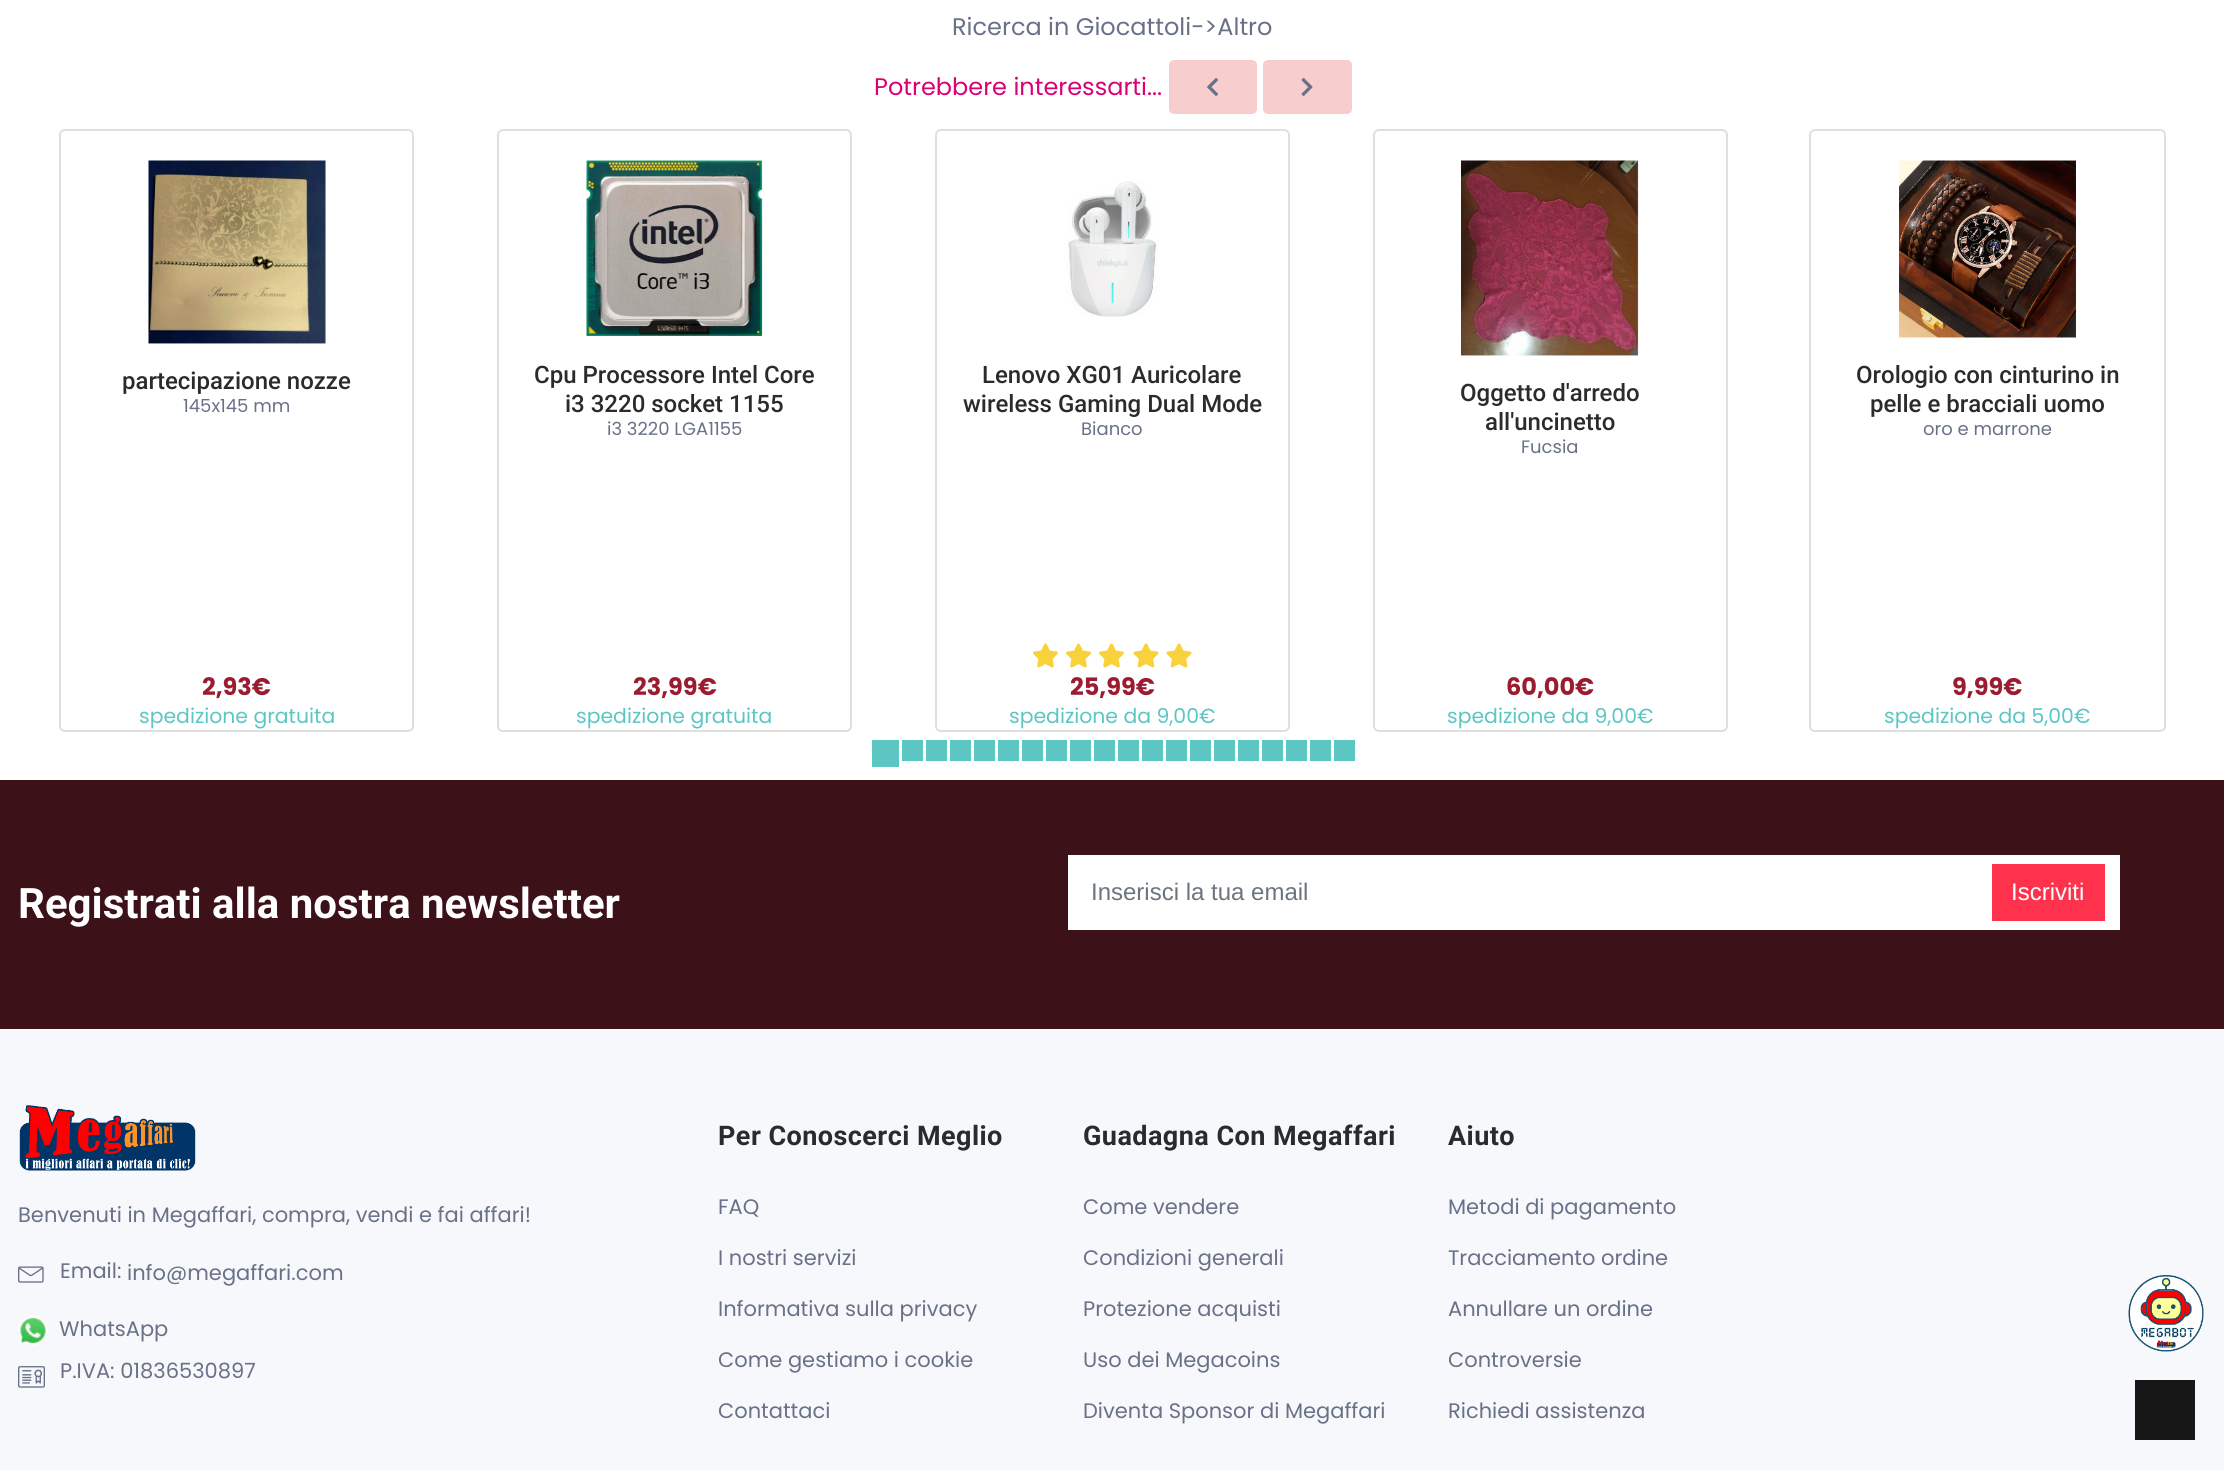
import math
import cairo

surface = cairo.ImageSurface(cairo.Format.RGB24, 2224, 1470)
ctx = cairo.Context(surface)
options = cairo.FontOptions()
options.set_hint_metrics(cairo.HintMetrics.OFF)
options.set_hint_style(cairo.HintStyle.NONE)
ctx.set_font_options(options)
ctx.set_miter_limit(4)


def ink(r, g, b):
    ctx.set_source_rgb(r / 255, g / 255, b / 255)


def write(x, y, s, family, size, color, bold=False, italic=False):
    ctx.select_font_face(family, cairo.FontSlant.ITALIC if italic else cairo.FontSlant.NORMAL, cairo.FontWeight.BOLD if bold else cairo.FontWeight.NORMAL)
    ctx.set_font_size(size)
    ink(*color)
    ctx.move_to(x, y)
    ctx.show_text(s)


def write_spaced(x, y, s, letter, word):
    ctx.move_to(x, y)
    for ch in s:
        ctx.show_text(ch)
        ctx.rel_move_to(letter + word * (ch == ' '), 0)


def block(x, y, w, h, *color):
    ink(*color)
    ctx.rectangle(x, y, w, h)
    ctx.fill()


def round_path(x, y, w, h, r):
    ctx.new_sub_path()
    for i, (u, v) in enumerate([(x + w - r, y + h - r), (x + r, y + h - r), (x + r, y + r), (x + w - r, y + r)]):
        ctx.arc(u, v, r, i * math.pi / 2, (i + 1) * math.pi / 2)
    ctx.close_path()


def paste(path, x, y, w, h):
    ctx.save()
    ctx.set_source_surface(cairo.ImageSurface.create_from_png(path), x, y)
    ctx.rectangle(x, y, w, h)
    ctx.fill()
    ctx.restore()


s1 = dict(family="Poppins", size=24, color=(104, 113, 136))
s2 = dict(family="Poppins", size=24, color=(219, 0, 117))
s3 = dict(family="Roboto Medium", size=24, color=(41, 43, 44))
s4 = dict(family="Poppins", size=18, color=(104, 113, 136))
s5 = dict(family="Poppins", size=24, color=(155, 27, 48), bold=True)
s6 = dict(family="Poppins", size=20.4, color=(92, 198, 195))
s7 = dict(family="Roboto", size=42, color=(255, 255, 255), bold=True)
s8 = dict(family="Liberation Sans", size=24, color=(108, 117, 125))
s9 = dict(family="Liberation Sans", size=24, color=(255, 255, 255))
s10 = dict(family="Poppins", size=21, color=(104, 113, 136))

ink(255, 255, 255)
ctx.paint()
write(952, 35, "Ricerca in Giocattoli->Altro", **s1)
write(874, 95, "Potrebbere interessarti...", **s2)
ink(248, 205, 205)
round_path(1169, 60, 88, 54, 5)
ctx.fill()
paste("pic1.png", 1207, 78, 11, 18)
round_path(1263, 60, 89, 54, 5)
ctx.fill()
paste("pic2.png", 1301, 78, 12, 18)
paste("pic3.png", 148, 160, 178, 184)
round_path(60, 130, 353, 601, 5)
ink(223, 223, 223)
ctx.stroke()
write(122, 389, "partecipazione nozze", **s3)
write(183, 412, "145x145 mm", **s4)
write(202, 695, "2,93€", **s5)
write(139, 723, "spedizione gratuita", **s6)
paste("pic4.png", 586, 160, 177, 176)
round_path(498, 130, 353, 601, 5)
ink(223, 223, 223)
ctx.stroke()
write(534, 383, "Cpu Processore Intel Core", **s3)
write(565, 412, "i3 3220 socket 1155", **s3)
write(607, 435, "i3 3220 LGA1155", **s4)
write(633, 695, "23,99€", **s5)
write(576, 723, "spedizione gratuita", **s6)
paste("pic5.png", 1066, 181, 92, 136)
round_path(936, 130, 353, 601, 5)
ink(223, 223, 223)
ctx.stroke()
write(982, 383, "Lenovo XG01 Auricolare", **s3)
write(963, 412, "wireless Gaming Dual Mode", **s3)
write(1081, 435, "Bianco", **s4)
paste("pic6.png", 1033, 643, 25, 25)
paste("pic6.png", 1066, 643, 25, 25)
paste("pic6.png", 1099, 643, 25, 25)
paste("pic7.png", 1133, 643, 26, 25)
paste("pic7.png", 1166, 643, 26, 25)
write(1070, 695, "25,99€", **s5)
write(1009, 723, "spedizione da 9,00€", **s6)
paste("pic8.png", 1461, 160, 178, 196)
round_path(1374, 130, 353, 601, 5)
ink(223, 223, 223)
ctx.stroke()
write(1460, 401, "Oggetto d'arredo", **s3)
write(1485, 430, "all'uncinetto", **s3)
write(1521, 453, "Fucsia", **s4)
write(1506, 695, "60,00€", **s5)
write(1447, 723, "spedizione da 9,00€", **s6)
paste("pic9.png", 1899, 160, 177, 178)
round_path(1810, 130, 355, 601, 5)
ink(223, 223, 223)
ctx.stroke()
write(1856, 383, "Orologio con cinturino in", **s3)
write(1870, 412, "pelle e bracciali uomo", **s3)
write(1923, 435, "oro e marrone", **s4)
write(1952, 695, "9,99€", **s5)
write(1884, 723, "spedizione da 5,00€", **s6)
block(872, 740, 27, 27, 92, 198, 195)
block(902, 740, 21, 21, 92, 198, 195)
block(926, 740, 21, 21, 92, 198, 195)
block(950, 740, 21, 21, 92, 198, 195)
block(974, 740, 21, 21, 92, 198, 195)
block(998, 740, 21, 21, 92, 198, 195)
block(1022, 740, 21, 21, 92, 198, 195)
block(1046, 740, 21, 21, 92, 198, 195)
block(1070, 740, 21, 21, 92, 198, 195)
block(1094, 740, 21, 21, 92, 198, 195)
block(1118, 740, 21, 21, 92, 198, 195)
block(1142, 740, 21, 21, 92, 198, 195)
block(1166, 740, 21, 21, 92, 198, 195)
block(1190, 740, 21, 21, 92, 198, 195)
block(1214, 740, 21, 21, 92, 198, 195)
block(1238, 740, 21, 21, 92, 198, 195)
block(1262, 740, 21, 21, 92, 198, 195)
block(1286, 740, 21, 21, 92, 198, 195)
block(1310, 740, 21, 21, 92, 198, 195)
block(1334, 740, 21, 21, 92, 198, 195)
block(0, 780, 2224, 249, 60, 17, 23)
write(18, 918, "Registrati alla nostra newsletter", **s7)
block(1068, 855, 1052, 75, 255, 255, 255)
write(1091, 900, "Inserisci la tua email", **s8)
ctx.rectangle(1993, 865, 111, 55)
ink(255, 50, 77)
ctx.stroke()
block(1994, 866, 109, 53, 255, 50, 77)
write(2011, 900, "Iscriviti", **s9)
block(0, 1029, 2224, 441, 247, 248, 251)
paste("pic10.png", 19, 1105, 177, 66)
write(18, 1222, "Benvenuti in Megaffari, compra, vendi e fai affari!", **s10)
paste("pic11.png", 18, 1266, 26, 17)
write(60, 1278, "Email:", **s10)
write(127, 1280, "info@megaffari.com", **s10)
paste("pic12.png", 18, 1315, 30, 31)
write(59, 1336, "WhatsApp", **s10)
paste("pic13.png", 18, 1366, 27, 22)
write(60, 1378, "P.IVA: 01836530897", **s10)
ctx.select_font_face("Roboto", cairo.FontSlant.NORMAL, cairo.FontWeight.BOLD)
ctx.set_font_size(27)
ink(41, 43, 44)
write_spaced(718, 1145, "Per Conoscerci Meglio", 0.45, 0)
write(718, 1214, "FAQ", **s10)
write(718, 1265, "I nostri servizi", **s10)
write(718, 1316, "Informativa sulla privacy", **s10)
write(718, 1367, "Come gestiamo i cookie", **s10)
write(718, 1418, "Contattaci", **s10)
ctx.select_font_face("Roboto", cairo.FontSlant.NORMAL, cairo.FontWeight.BOLD)
ctx.set_font_size(27)
ink(41, 43, 44)
write_spaced(1083, 1145, "Guadagna Con Megaffari", 0.45, 0)
write(1083, 1214, "Come vendere", **s10)
write(1083, 1265, "Condizioni generali", **s10)
write(1083, 1316, "Protezione acquisti", **s10)
write(1083, 1367, "Uso dei Megacoins", **s10)
write(1083, 1418, "Diventa Sponsor di Megaffari", **s10)
ctx.select_font_face("Roboto", cairo.FontSlant.NORMAL, cairo.FontWeight.BOLD)
ctx.set_font_size(27)
ink(41, 43, 44)
write_spaced(1448, 1145, "Aiuto", 0.45, 0)
write(1448, 1214, "Metodi di pagamento", **s10)
write(1448, 1265, "Tracciamento ordine", **s10)
write(1448, 1316, "Annullare un ordine", **s10)
write(1448, 1367, "Controversie", **s10)
write(1448, 1418, "Richiedi assistenza", **s10)
paste("pic14.png", 2128, 1275, 76, 77)
block(2135, 1380, 60, 60, 23, 23, 23)
surface.write_to_png("screenshot.png")
